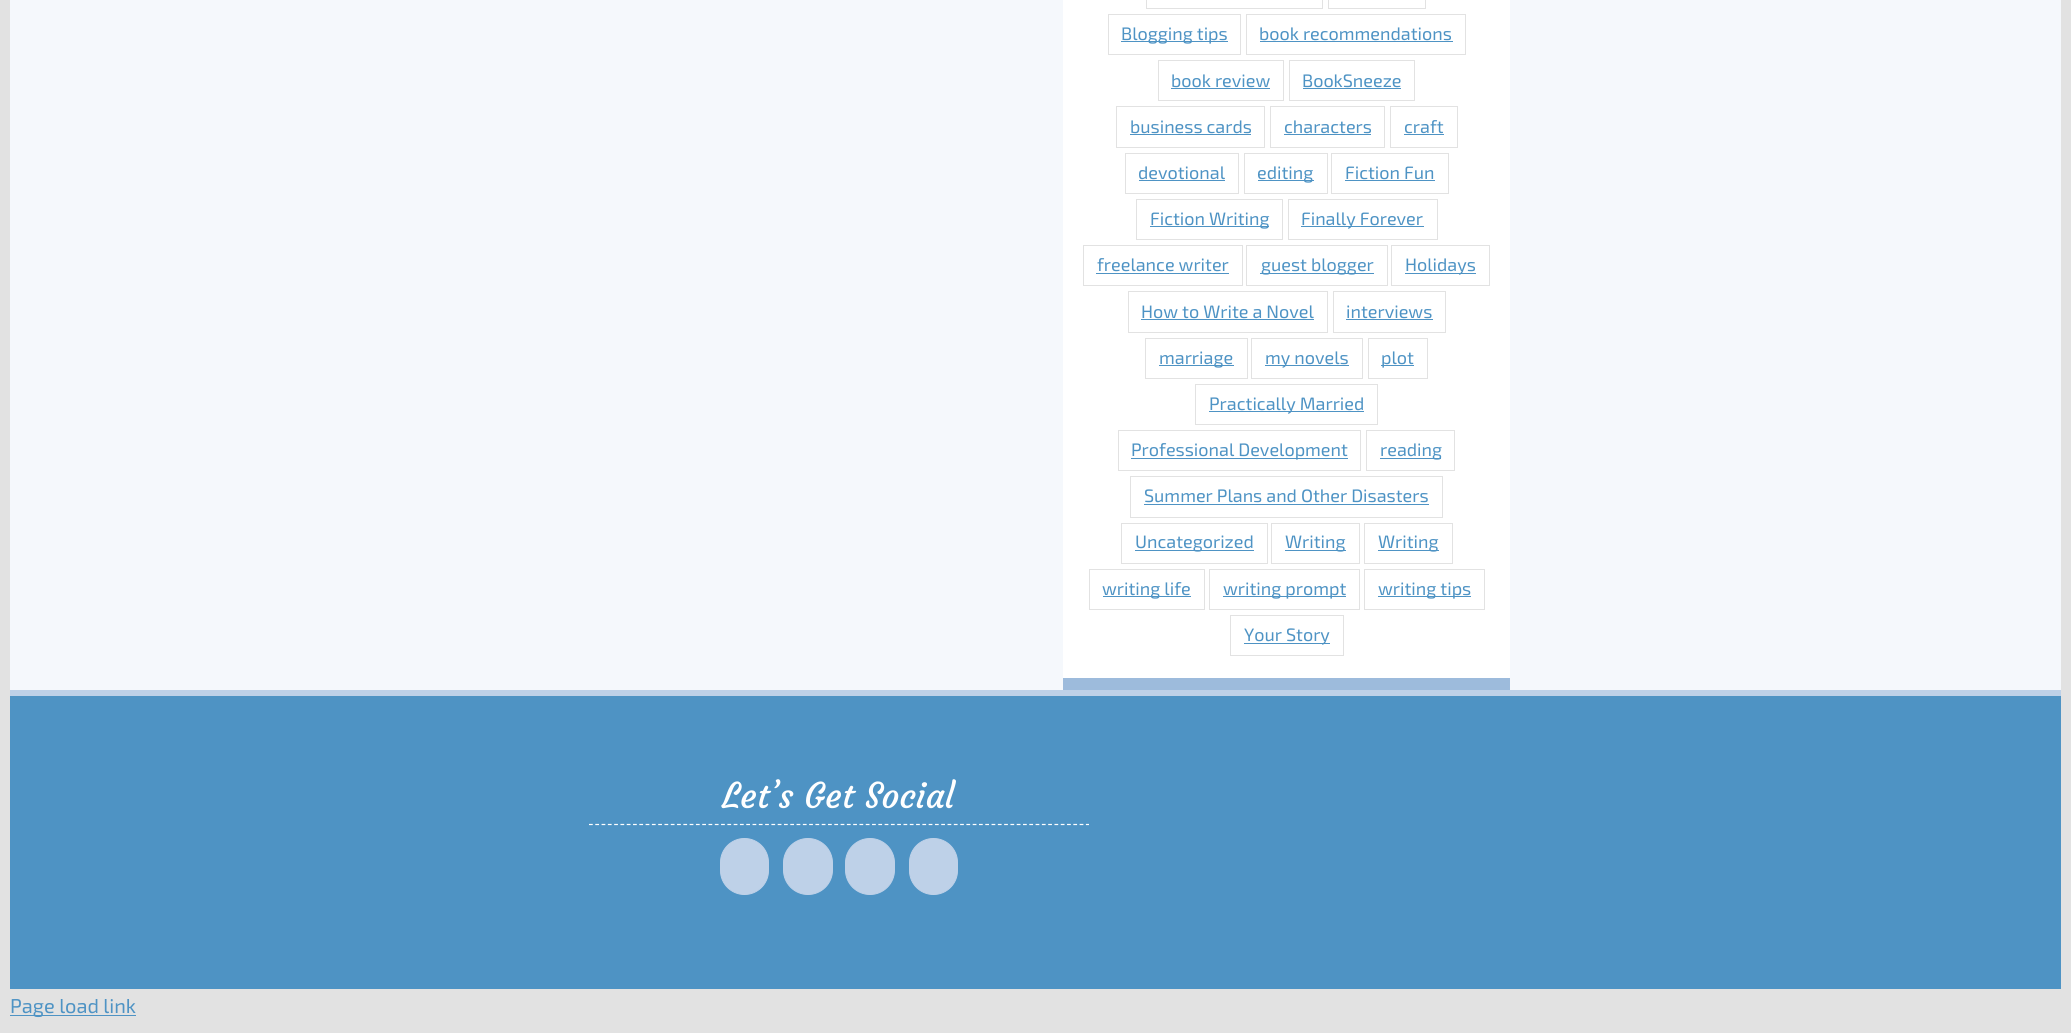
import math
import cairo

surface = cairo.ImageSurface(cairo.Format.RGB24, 2071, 1033)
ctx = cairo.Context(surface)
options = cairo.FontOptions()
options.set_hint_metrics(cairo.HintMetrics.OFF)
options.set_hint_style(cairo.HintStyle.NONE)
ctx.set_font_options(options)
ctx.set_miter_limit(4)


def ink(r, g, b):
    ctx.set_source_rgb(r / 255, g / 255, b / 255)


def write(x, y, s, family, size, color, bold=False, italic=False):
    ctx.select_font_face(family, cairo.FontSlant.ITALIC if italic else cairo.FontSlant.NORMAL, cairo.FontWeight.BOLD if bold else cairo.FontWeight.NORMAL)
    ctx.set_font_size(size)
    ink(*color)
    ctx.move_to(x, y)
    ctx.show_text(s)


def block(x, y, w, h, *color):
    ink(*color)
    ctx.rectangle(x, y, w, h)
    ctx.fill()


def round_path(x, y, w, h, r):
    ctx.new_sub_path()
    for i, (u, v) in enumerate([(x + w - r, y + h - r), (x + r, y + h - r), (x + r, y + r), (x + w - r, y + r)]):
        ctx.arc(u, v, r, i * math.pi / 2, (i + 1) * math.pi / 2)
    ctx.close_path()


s1 = dict(family="Exo 2", size=18, color=(78, 147, 196))
s2 = dict(family="Courgette", size=35, color=(255, 255, 255))
s3 = dict(family="Exo 2", size=20, color=(78, 147, 196))

ink(226, 226, 226)
ctx.paint()
block(10, 0, 2051, 690, 245, 248, 252)
block(1063, 0, 447, 678, 255, 255, 255)
block(1063, 678, 447, 12, 157, 187, 220)
ctx.rectangle(1146.5, -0.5, 176, 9)
ink(226, 226, 226)
ctx.set_line_width(1)
ctx.stroke()
ctx.rectangle(1328.5, -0.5, 97, 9)
ctx.stroke()
ctx.rectangle(1108.5, 14.5, 132, 40)
ctx.stroke()
block(1121, 41, 107, 1, 78, 147, 196)
write(1121, 40, "Blogging tips", **s1)
ctx.rectangle(1246.5, 14.5, 219, 40)
ink(226, 226, 226)
ctx.stroke()
write(1259, 40, "book recommendations", **s1)
block(1260, 41, 193, 1, 78, 147, 196)
ctx.rectangle(1158.5, 60.5, 125, 40)
ink(226, 226, 226)
ctx.stroke()
write(1171, 87, "book review", **s1)
block(1171, 88, 99, 1, 78, 147, 196)
ctx.rectangle(1289.5, 60.5, 125, 40)
ink(226, 226, 226)
ctx.stroke()
write(1302, 87, "BookSneeze", **s1)
block(1303, 88, 98, 1, 78, 147, 196)
ctx.rectangle(1116.5, 106.5, 148, 41)
ink(226, 226, 226)
ctx.stroke()
write(1130, 133, "business cards", **s1)
block(1130, 134, 121, 1, 78, 147, 196)
ctx.rectangle(1270.5, 106.5, 114, 41)
ink(226, 226, 226)
ctx.stroke()
write(1284, 133, "characters", **s1)
block(1284, 134, 87, 1, 78, 147, 196)
ctx.rectangle(1390.5, 106.5, 67, 41)
ink(226, 226, 226)
ctx.stroke()
write(1404, 133, "craft", **s1)
block(1404, 134, 40, 1, 78, 147, 196)
ctx.rectangle(1125.5, 153.5, 113, 40)
ink(226, 226, 226)
ctx.stroke()
write(1138, 179, "devotional", **s1)
block(1139, 180, 86, 1, 78, 147, 196)
ctx.rectangle(1244.5, 153.5, 83, 40)
ink(226, 226, 226)
ctx.stroke()
block(1258, 180, 56, 1, 78, 147, 196)
write(1257, 179, "editing", **s1)
ctx.rectangle(1331.5, 153.5, 117, 40)
ink(226, 226, 226)
ctx.stroke()
write(1345, 179, "Fiction Fun", **s1)
block(1345, 180, 90, 1, 78, 147, 196)
ctx.rectangle(1136.5, 199.5, 146, 40)
ink(226, 226, 226)
ctx.stroke()
block(1150, 226, 119, 1, 78, 147, 196)
write(1150, 225, "Fiction Writing", **s1)
ctx.rectangle(1288.5, 199.5, 149, 40)
ink(226, 226, 226)
ctx.stroke()
block(1301, 226, 123, 1, 78, 147, 196)
write(1301, 225, "Finally Forever", **s1)
ctx.rectangle(1083.5, 245.5, 159, 40)
ink(226, 226, 226)
ctx.stroke()
write(1097, 271, "freelance writer", **s1)
block(1096, 273, 133, 1, 78, 147, 196)
ctx.rectangle(1246.5, 245.5, 141, 40)
ink(226, 226, 226)
ctx.stroke()
block(1260, 273, 114, 1, 78, 147, 196)
write(1261, 271, "guest blogger", **s1)
ctx.rectangle(1391.5, 245.5, 98, 40)
ink(226, 226, 226)
ctx.stroke()
block(1405, 273, 71, 1, 78, 147, 196)
write(1405, 271, "Holidays", **s1)
ctx.rectangle(1128.5, 291.5, 199, 41)
ink(226, 226, 226)
ctx.stroke()
write(1141, 318, "How to Write a Novel", **s1)
block(1141, 319, 173, 1, 78, 147, 196)
ctx.rectangle(1333.5, 291.5, 112, 41)
ink(226, 226, 226)
ctx.stroke()
write(1346, 318, "interviews", **s1)
block(1346, 319, 87, 1, 78, 147, 196)
ctx.rectangle(1145.5, 338.5, 102, 40)
ink(226, 226, 226)
ctx.stroke()
block(1159, 365, 75, 1, 78, 147, 196)
write(1159, 364, "marriage", **s1)
ctx.rectangle(1251.5, 338.5, 111, 40)
ink(226, 226, 226)
ctx.stroke()
block(1265, 365, 84, 1, 78, 147, 196)
write(1265, 364, "my novels", **s1)
ctx.rectangle(1368.5, 338.5, 59, 40)
ink(226, 226, 226)
ctx.stroke()
block(1381, 365, 33, 1, 78, 147, 196)
write(1381, 364, "plot", **s1)
ctx.rectangle(1195.5, 384.5, 182, 40)
ink(226, 226, 226)
ctx.stroke()
block(1209, 411, 155, 1, 78, 147, 196)
write(1209, 410, "Practically Married", **s1)
ctx.rectangle(1118.5, 430.5, 242, 40)
ink(226, 226, 226)
ctx.stroke()
block(1131, 458, 217, 1, 78, 147, 196)
write(1131, 456, "Professional Development", **s1)
ctx.rectangle(1366.5, 430.5, 88, 40)
ink(226, 226, 226)
ctx.stroke()
block(1380, 458, 61, 1, 78, 147, 196)
write(1380, 456, "reading", **s1)
ctx.rectangle(1130.5, 476.5, 312, 41)
ink(226, 226, 226)
ctx.stroke()
write(1144, 502, "Summer Plans and Other Disasters", **s1)
block(1144, 504, 285, 1, 78, 147, 196)
ctx.rectangle(1121.5, 523.5, 146, 40)
ink(226, 226, 226)
ctx.stroke()
block(1135, 550, 119, 1, 78, 147, 196)
write(1135, 548, "Uncategorized", **s1)
ctx.rectangle(1271.5, 523.5, 88, 40)
ink(226, 226, 226)
ctx.stroke()
block(1285, 550, 61, 1, 78, 147, 196)
write(1285, 548, "Writing", **s1)
ctx.rectangle(1364.5, 523.5, 88, 40)
ink(226, 226, 226)
ctx.stroke()
block(1378, 550, 61, 1, 78, 147, 196)
write(1378, 548, "Writing", **s1)
ctx.rectangle(1089.5, 569.5, 115, 40)
ink(226, 226, 226)
ctx.stroke()
block(1103, 596, 88, 1, 78, 147, 196)
write(1102, 595, "writing life", **s1)
ctx.rectangle(1209.5, 569.5, 150, 40)
ink(226, 226, 226)
ctx.stroke()
block(1223, 596, 123, 1, 78, 147, 196)
write(1223, 595, "writing prompt", **s1)
ctx.rectangle(1364.5, 569.5, 120, 40)
ink(226, 226, 226)
ctx.stroke()
block(1378, 596, 93, 1, 78, 147, 196)
write(1378, 595, "writing tips", **s1)
ctx.rectangle(1230.5, 615.5, 113, 40)
ink(226, 226, 226)
ctx.stroke()
block(1244, 643, 86, 1, 78, 147, 196)
write(1244, 641, "Your Story", **s1)
block(10, 696, 2051, 293, 78, 147, 196)
block(10, 690, 2051, 6, 190, 209, 232)
ctx.new_path()
ctx.move_to(589, 824.5)
ctx.line_to(1089, 824.5)
ink(255, 255, 255)
ctx.set_line_width(1.2)
ctx.set_dash([3.75, 2.54])
ctx.stroke()
write(722, 808, "Let’s Get Social", **s2)
ink(190, 209, 232)
round_path(720.5, 838.5, 48, 56, 24)
ctx.fill_preserve()
ctx.set_line_width(1)
ctx.set_dash([])
ctx.stroke()
round_path(783.5, 838.5, 49, 56, 24.5)
ctx.fill_preserve()
ctx.stroke()
round_path(845.5, 838.5, 49, 56, 24.5)
ctx.fill_preserve()
ctx.stroke()
round_path(909.5, 838.5, 48, 56, 24)
ctx.fill_preserve()
ctx.stroke()
block(10, 1015, 126, 1, 78, 147, 196)
write(10, 1013, "Page load link", **s3)
surface.write_to_png("screenshot.png")
